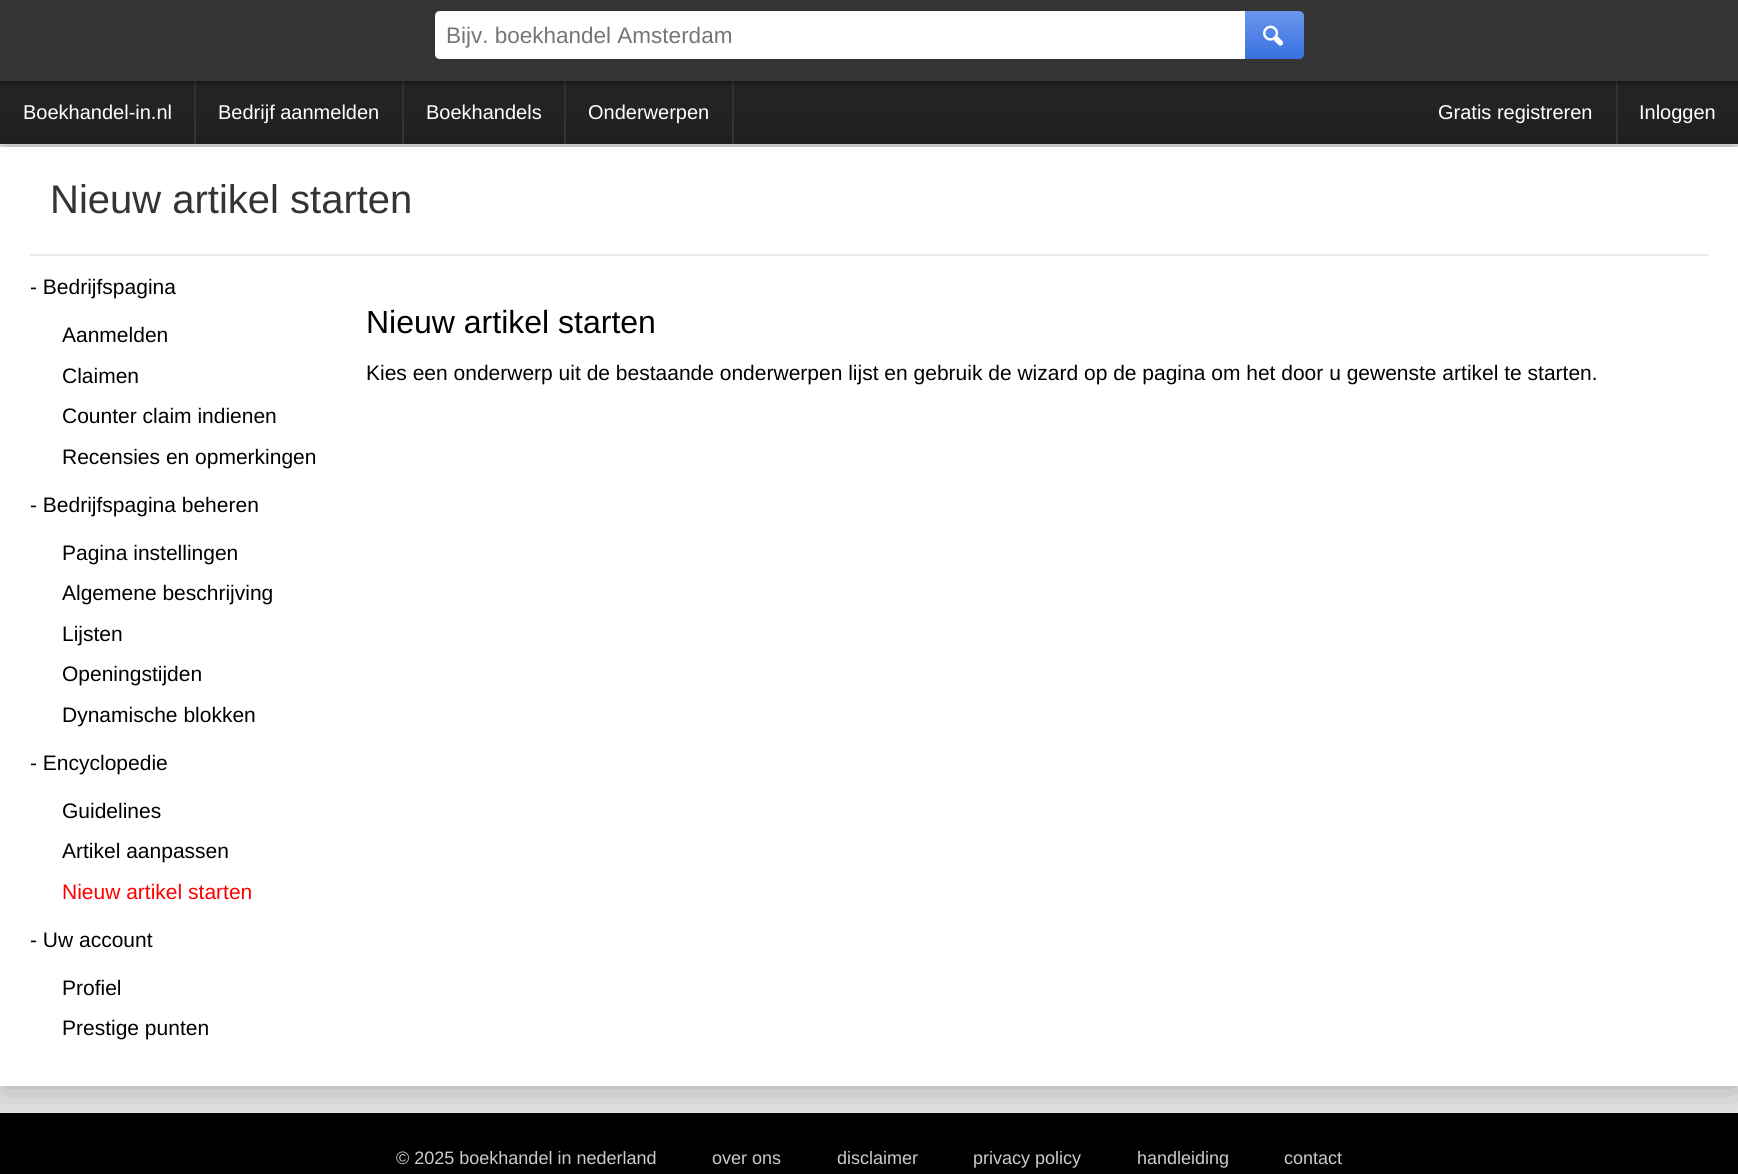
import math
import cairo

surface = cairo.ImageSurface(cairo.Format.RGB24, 1738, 1174)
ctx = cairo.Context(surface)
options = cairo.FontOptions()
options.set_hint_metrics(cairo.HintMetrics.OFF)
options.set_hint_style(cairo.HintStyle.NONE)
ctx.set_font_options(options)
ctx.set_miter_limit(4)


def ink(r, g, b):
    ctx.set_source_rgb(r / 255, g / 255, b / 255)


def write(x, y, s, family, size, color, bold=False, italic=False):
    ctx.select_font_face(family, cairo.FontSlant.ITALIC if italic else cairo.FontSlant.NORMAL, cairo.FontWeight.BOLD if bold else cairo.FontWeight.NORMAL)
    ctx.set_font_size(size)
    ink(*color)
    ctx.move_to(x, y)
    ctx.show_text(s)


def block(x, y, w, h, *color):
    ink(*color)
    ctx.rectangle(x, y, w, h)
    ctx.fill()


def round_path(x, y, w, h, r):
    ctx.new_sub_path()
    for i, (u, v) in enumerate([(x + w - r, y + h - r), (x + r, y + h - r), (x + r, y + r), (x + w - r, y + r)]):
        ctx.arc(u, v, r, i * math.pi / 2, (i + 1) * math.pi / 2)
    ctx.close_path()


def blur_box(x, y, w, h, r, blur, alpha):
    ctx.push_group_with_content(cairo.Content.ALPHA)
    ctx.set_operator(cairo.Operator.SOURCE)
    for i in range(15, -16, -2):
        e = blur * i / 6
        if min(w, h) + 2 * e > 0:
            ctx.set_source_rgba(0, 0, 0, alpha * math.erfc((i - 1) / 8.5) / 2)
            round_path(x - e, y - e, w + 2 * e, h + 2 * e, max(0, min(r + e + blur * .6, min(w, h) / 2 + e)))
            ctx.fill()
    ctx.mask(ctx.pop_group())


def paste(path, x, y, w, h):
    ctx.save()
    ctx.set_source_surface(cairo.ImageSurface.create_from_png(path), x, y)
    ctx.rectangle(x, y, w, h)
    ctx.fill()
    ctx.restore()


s1 = dict(family="Liberation Sans", size=22.5, color=(117, 117, 117))
s2 = dict(family="Liberation Sans", size=20, color=(255, 255, 255))
s3 = dict(family="Liberation Sans", size=40, color=(52, 52, 52))
s4 = dict(family="Liberation Sans", size=21, color=(0, 0, 0))
s5 = dict(family="Liberation Sans", size=21, color=(255, 0, 0))
s6 = dict(family="Liberation Sans", size=32, color=(0, 0, 0))
s7 = dict(family="Liberation Sans", size=18, color=(204, 204, 204))

ink(0, 0, 0)
ctx.paint()
block(0, 144, 1738, 969, 232, 232, 232)
block(0, 81, 1738, 63, 35, 35, 35)
ink(0, 0, 0)
blur_box(0, 147, 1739, 939, 0, 22.5, 0.3)
block(0, 0, 1738, 81, 52, 52, 52)
block(194, 81, 2, 63, 51, 51, 51)
block(402, 81, 2, 63, 51, 51, 51)
block(564, 81, 2, 63, 51, 51, 51)
block(732, 81, 2, 63, 51, 51, 51)
block(1616, 81, 2, 63, 51, 51, 51)
ctx.save()
ctx.rectangle(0, 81, 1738, 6)
ctx.clip()
ink(0, 0, 0)
blur_box(0, -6, 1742, 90, 0, 2, 0.3)
ctx.restore()
ink(255, 255, 255)
ctx.new_path()
ctx.move_to(440, 11)
ctx.line_to(1268, 11)
ctx.line_to(1268, 59)
ctx.line_to(440, 59)
ctx.curve_to(437, 59, 435, 57, 435, 54)
ctx.line_to(435, 16)
ctx.curve_to(435, 13, 437, 11, 440, 11)
ctx.close_path()
ctx.fill()
write(446, 43, "Bijv. boekhandel Amsterdam", **s1)
gradient = cairo.LinearGradient(1274, 10, 1274, 59)
gradient.add_color_stop_rgba(0, 0.416, 0.588, 0.929, 1)
gradient.add_color_stop_rgba(1, 0.227, 0.443, 0.878, 1)
ctx.set_source(gradient)
ctx.new_path()
ctx.move_to(1245, 11)
ctx.line_to(1299, 11)
ctx.curve_to(1302, 11, 1304, 13, 1304, 16)
ctx.line_to(1304, 54)
ctx.curve_to(1304, 57, 1302, 59, 1299, 59)
ctx.line_to(1245, 59)
ctx.close_path()
ctx.fill()
paste("pic1.png", 1263, 25, 21, 21)
write(23, 119, "Boekhandel-in.nl", **s2)
write(218, 119, "Bedrijf aanmelden", **s2)
write(426, 119, "Boekhandels", **s2)
write(588, 119, "Onderwerpen", **s2)
write(1438, 119, "Gratis registreren", **s2)
write(1639, 119, "Inloggen", **s2)
block(0, 147, 1738, 939, 255, 255, 255)
block(30, 254, 1679, 2, 234, 234, 234)
write(50, 213, "Nieuw artikel starten", **s3)
write(30, 294, "- Bedrijfspagina", **s4)
write(62, 342, "Aanmelden", **s4)
write(62, 383, "Claimen", **s4)
write(62, 423, "Counter claim indienen", **s4)
write(62, 464, "Recensies en opmerkingen", **s4)
write(30, 512, "- Bedrijfspagina beheren", **s4)
write(62, 560, "Pagina instellingen", **s4)
write(62, 600, "Algemene beschrijving", **s4)
write(62, 641, "Lijsten", **s4)
write(62, 681, "Openingstijden", **s4)
write(62, 722, "Dynamische blokken", **s4)
write(30, 770, "- Encyclopedie", **s4)
write(62, 818, "Guidelines", **s4)
write(62, 858, "Artikel aanpassen", **s4)
write(62, 899, "Nieuw artikel starten", **s5)
write(30, 947, "- Uw account", **s4)
write(62, 995, "Profiel", **s4)
write(62, 1035, "Prestige punten", **s4)
write(366, 333, "Nieuw artikel starten", **s6)
write(366, 380, "Kies een onderwerp uit de bestaande onderwerpen lijst en gebruik de wizard op de pagina om het door u gewenste artikel te starten.", **s4)
write(396, 1164, "© 2025 boekhandel in nederland", **s7)
write(712, 1164, "over ons", **s7)
write(837, 1164, "disclaimer", **s7)
write(973, 1164, "privacy policy", **s7)
write(1137, 1164, "handleiding", **s7)
write(1284, 1164, "contact", **s7)
surface.write_to_png("screenshot.png")
